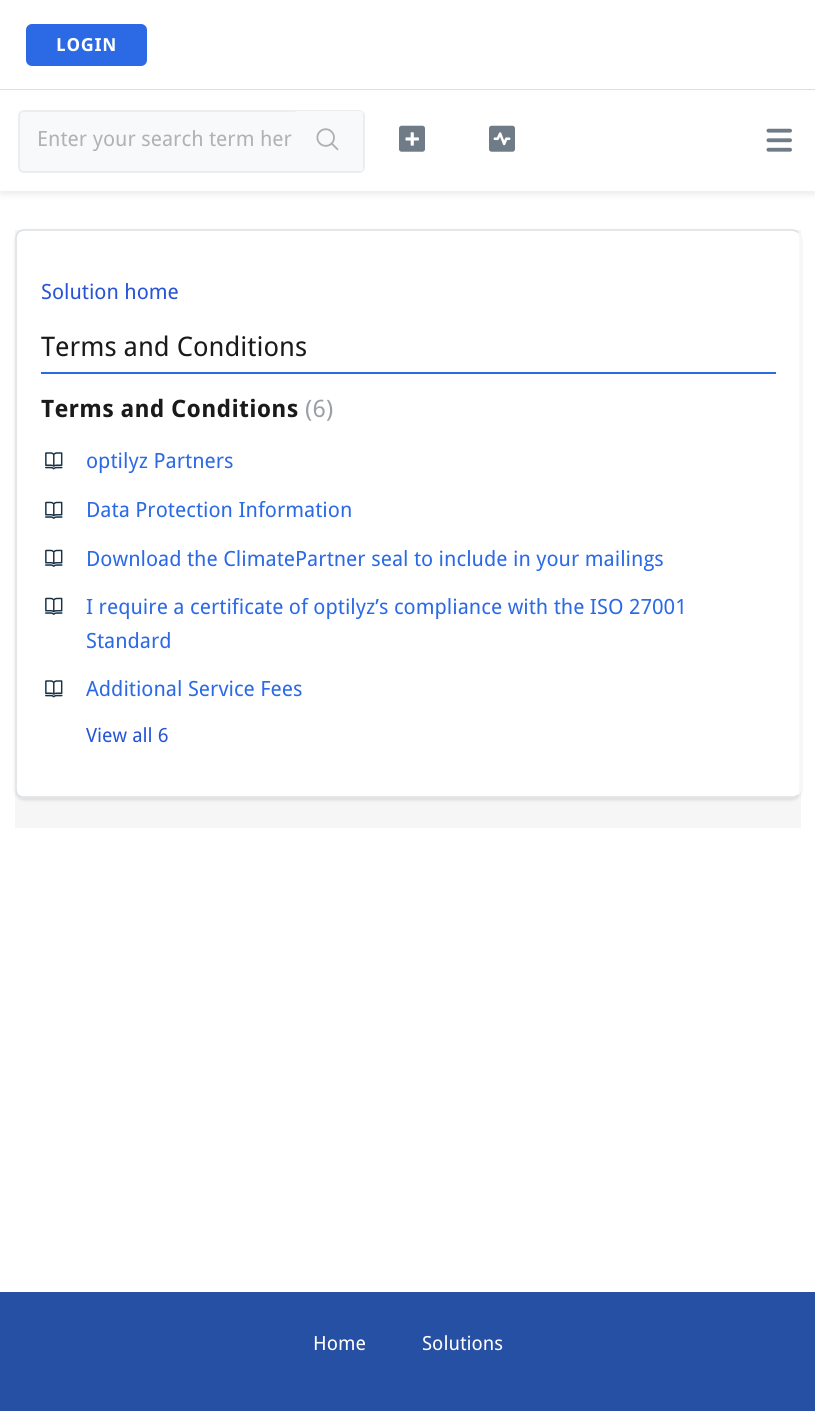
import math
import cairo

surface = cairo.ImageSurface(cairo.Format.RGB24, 815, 1411)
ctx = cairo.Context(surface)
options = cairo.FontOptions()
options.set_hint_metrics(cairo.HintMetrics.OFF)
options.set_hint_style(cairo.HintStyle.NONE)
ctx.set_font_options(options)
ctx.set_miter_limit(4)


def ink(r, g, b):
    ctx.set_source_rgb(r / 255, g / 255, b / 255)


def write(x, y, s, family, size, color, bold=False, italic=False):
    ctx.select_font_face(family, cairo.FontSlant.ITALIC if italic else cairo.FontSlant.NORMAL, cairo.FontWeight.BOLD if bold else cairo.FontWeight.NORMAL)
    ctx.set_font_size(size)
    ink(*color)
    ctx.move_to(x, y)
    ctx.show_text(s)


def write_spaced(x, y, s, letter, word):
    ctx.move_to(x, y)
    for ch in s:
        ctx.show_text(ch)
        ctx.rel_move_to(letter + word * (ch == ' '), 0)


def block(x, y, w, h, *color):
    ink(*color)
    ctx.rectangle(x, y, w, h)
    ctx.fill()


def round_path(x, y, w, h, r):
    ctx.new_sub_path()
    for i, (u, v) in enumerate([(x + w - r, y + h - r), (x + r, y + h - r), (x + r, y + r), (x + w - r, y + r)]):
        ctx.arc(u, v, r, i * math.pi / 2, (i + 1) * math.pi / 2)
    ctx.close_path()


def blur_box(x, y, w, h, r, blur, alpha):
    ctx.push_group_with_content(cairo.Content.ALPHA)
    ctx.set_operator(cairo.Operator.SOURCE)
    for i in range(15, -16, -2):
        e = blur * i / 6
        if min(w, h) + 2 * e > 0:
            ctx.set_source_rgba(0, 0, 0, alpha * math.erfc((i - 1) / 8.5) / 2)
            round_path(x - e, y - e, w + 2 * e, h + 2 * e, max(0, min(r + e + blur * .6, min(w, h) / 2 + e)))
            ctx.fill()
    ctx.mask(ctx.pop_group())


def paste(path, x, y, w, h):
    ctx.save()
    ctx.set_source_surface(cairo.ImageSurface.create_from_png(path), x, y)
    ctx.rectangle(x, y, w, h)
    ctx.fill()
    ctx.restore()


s1 = dict(family="Droid Sans", size=21, color=(178, 178, 178))
s2 = dict(family="Droid Sans", size=21, color=(39, 83, 215))
s3 = dict(family="Droid Sans", size=27, color=(26, 26, 26))
s4 = dict(family="Droid Sans", size=21, color=(44, 106, 229))
s5 = dict(family="Droid Sans", size=19.5, color=(39, 83, 215))
s6 = dict(family="Droid Sans", size=19.5, color=(255, 255, 255))

ink(255, 255, 255)
ctx.paint()
block(0, 89, 815, 1, 218, 223, 227)
ink(44, 106, 229)
round_path(26, 24, 121, 42, 6)
ctx.fill()
ctx.select_font_face("Droid Sans", cairo.FontSlant.NORMAL, cairo.FontWeight.BOLD)
ctx.set_font_size(18)
ink(255, 255, 255)
write_spaced(56, 51, "LOGIN", 0.75, 0)
ink(238, 238, 238)
blur_box(0, 95, 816, 100, 0, 3, 1)
block(0, 92, 815, 99, 255, 255, 255)
paste("pic1.png", 766, 128, 26, 24)
ink(248, 249, 250)
round_path(19, 111, 345, 61, 5)
ctx.fill_preserve()
ink(235, 238, 240)
ctx.stroke()
write(37, 146, "Enter your search term her", **s1)
ink(248, 249, 250)
round_path(294, 111, 69, 60, 3)
ctx.fill()
paste("pic2.png", 316, 128, 23, 23)
paste("pic3.png", 399, 125, 26, 27)
paste("pic4.png", 489, 125, 26, 27)
block(15, 230, 786, 598, 246, 246, 246)
ink(63, 63, 68)
blur_box(15, 231, 786, 569, 9, 1.5, 0.15)
ink(255, 255, 255)
round_path(15, 230, 786, 568, 9)
ctx.fill()
ctx.new_path()
ctx.move_to(798, 232.5)
ctx.curve_to(799.5, 234, 800, 236.5, 800, 238.5)
ctx.line_to(800, 789)
ctx.curve_to(800, 791, 799.5, 793.5, 798, 795)
ink(246, 246, 246)
ctx.set_line_width(1.5)
ctx.stroke()
ctx.new_path()
ctx.move_to(798, 795)
ctx.curve_to(796.5, 796.5, 794, 797, 792, 797)
ctx.line_to(24, 797)
ctx.curve_to(22, 797, 19.5, 796.5, 18, 795)
ctx.curve_to(16.5, 793.5, 16, 791, 16, 789)
ctx.line_to(16, 238.5)
ctx.curve_to(16, 236.5, 16.5, 234, 18, 232.5)
ctx.curve_to(19.5, 231, 22, 230, 24, 230)
ctx.line_to(792, 230)
ctx.curve_to(794, 230, 796.5, 231, 798, 232.5)
ink(218, 223, 227)
ctx.stroke()
write(41, 299, "Solution home", **s2)
block(41, 372, 735, 2, 44, 106, 229)
write(41, 356, "Terms and Conditions", **s3)
ctx.select_font_face("Droid Sans", cairo.FontSlant.NORMAL, cairo.FontWeight.BOLD)
ctx.set_font_size(24)
write_spaced(41, 417, "Terms and Conditions", 0.25, 0)
ctx.select_font_face("Droid Sans")
ink(154, 161, 166)
write_spaced(305, 417, "(6)", 0.25, 0)
paste("pic5.png", 45, 452, 18, 18)
write(86, 468, "optilyz Partners", **s4)
paste("pic6.png", 45, 501, 18, 18)
write(86, 517, "Data Protection Information", **s4)
paste("pic6.png", 45, 549, 18, 18)
write(86, 566, "Download the ClimatePartner seal to include in your mailings", **s4)
paste("pic6.png", 45, 597, 18, 18)
write(86, 614, "I require a certificate of optilyz’s compliance with the ISO 27001", **s4)
write(86, 648, "Standard", **s4)
paste("pic5.png", 45, 680, 18, 18)
write(86, 696, "Additional Service Fees", **s4)
write(86, 742, "View all 6", **s5)
block(0, 1292, 815, 119, 38, 80, 164)
write(313, 1350, "Home", **s6)
write(422, 1350, "Solutions", **s6)
surface.write_to_png("screenshot.png")
